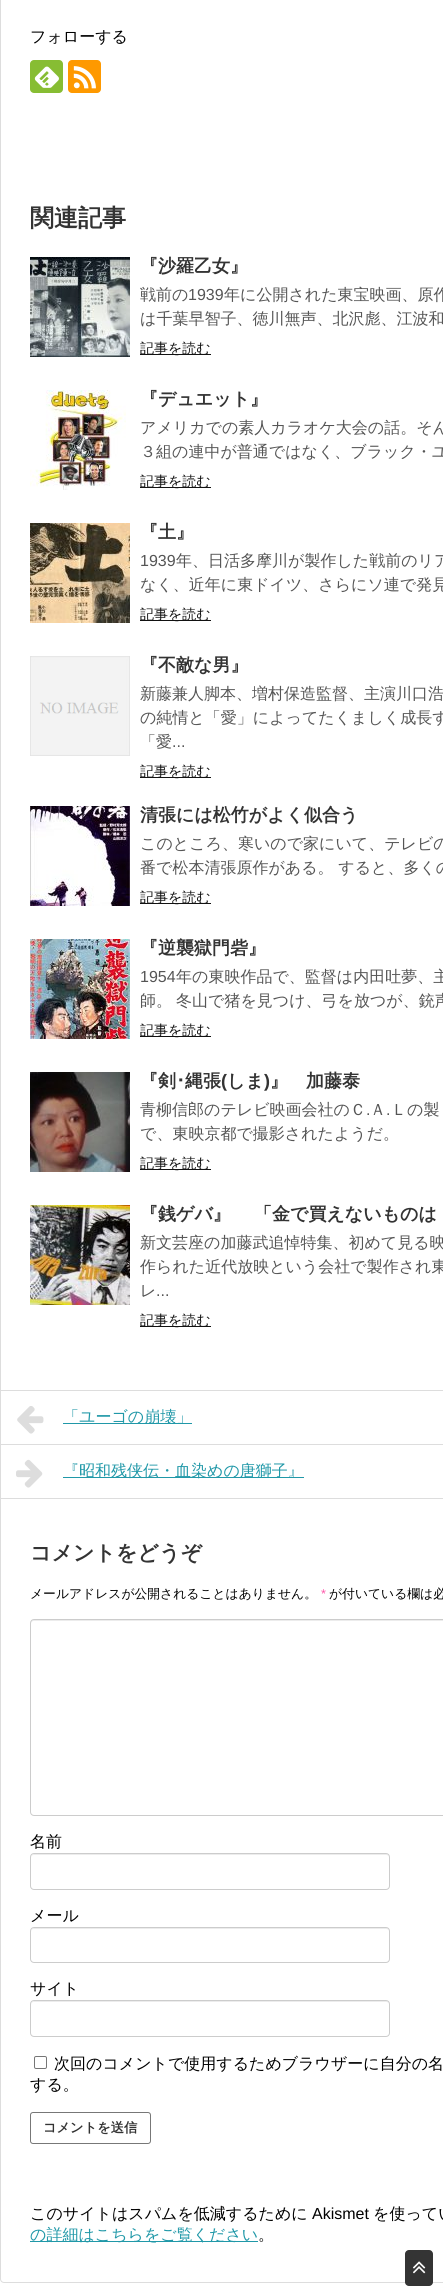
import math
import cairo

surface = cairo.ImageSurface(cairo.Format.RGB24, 443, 2296)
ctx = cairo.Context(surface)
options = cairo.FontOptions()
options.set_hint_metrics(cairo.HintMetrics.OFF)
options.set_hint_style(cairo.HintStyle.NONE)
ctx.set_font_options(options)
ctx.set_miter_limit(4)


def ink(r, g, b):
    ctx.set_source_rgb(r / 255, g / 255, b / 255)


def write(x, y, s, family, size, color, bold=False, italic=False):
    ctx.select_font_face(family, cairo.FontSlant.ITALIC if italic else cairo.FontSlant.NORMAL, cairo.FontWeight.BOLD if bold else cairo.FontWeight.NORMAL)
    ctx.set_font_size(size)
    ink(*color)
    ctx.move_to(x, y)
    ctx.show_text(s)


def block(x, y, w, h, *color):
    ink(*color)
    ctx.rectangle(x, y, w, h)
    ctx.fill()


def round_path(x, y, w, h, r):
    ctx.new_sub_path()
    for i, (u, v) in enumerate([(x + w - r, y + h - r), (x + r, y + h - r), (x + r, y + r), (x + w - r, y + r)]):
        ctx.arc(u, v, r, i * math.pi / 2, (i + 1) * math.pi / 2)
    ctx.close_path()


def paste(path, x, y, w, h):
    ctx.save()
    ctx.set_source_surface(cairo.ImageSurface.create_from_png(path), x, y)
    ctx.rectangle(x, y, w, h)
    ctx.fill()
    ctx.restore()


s1 = dict(family="WenQuanYi Zen Hei Medium", size=16, color=(0, 0, 0))
s2 = dict(family="WenQuanYi Zen Hei", size=24, color=(51, 51, 51), bold=True)
s3 = dict(family="WenQuanYi Zen Hei", size=18, color=(51, 51, 51), bold=True)
s4 = dict(family="WenQuanYi Zen Hei Medium", size=16, color=(85, 85, 85))
s5 = dict(family="Liberation Sans", size=16, color=(85, 85, 85))
s6 = dict(family="WenQuanYi Zen Hei Medium", size=14, color=(17, 17, 17))
s7 = dict(family="IPAPGothic", size=18, color=(51, 51, 51), bold=True)
s8 = dict(family="Liberation Sans", size=18, color=(51, 51, 51), bold=True)
s9 = dict(family="WenQuanYi Zen Hei Medium", size=16, color=(32, 152, 168))
s10 = dict(family="WenQuanYi Zen Hei", size=21, color=(51, 51, 51), bold=True)
s11 = dict(family="WenQuanYi Zen Hei Medium", size=12.8, color=(0, 0, 0))
s12 = dict(family="Liberation Sans", size=12.8, color=(254, 86, 170))
s13 = dict(family="WenQuanYi Zen Hei", size=13.25, color=(51, 51, 51), bold=True)
s14 = dict(family="Liberation Sans", size=16, color=(0, 0, 0))

ink(255, 255, 255)
ctx.paint()
round_path(0.5, -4.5, 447, 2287, 3.5)
ink(221, 221, 221)
ctx.set_line_width(1)
ctx.stroke()
write(30, 42, "フォローする", **s1)
ink(135, 189, 51)
round_path(30, 60, 33, 33, 4)
ctx.fill()
paste("pic1.png", 34, 66, 25, 22)
ink(254, 153, 0)
round_path(68, 60, 33, 33, 4)
ctx.fill()
paste("pic2.png", 73, 66, 23, 23)
write(30, 226, "関連記事", **s2)
paste("pic3.png", 30, 257, 100, 100)
write(140, 272, "『沙羅乙女』", **s3)
write(140, 300, "戦前の", **s4)
write(188, 300, "1939", **s5)
write(224, 300, "年に公開された東宝映画、原作", **s4)
write(140, 324, "は千葉早智子、徳川無声、北沢彪、江波和", **s4)
block(140, 354, 71, 1, 17, 17, 17)
write(140, 353, "記事を読む", **s6)
paste("pic4.png", 30, 390, 96, 100)
write(140, 405, "『デュエット』", **s3)
write(140, 433, "アメリカでの素人カラオケ大会の話。そん", **s4)
write(140, 457, "３組の連中が普通ではなく、ブラック・ユ", **s4)
block(140, 487, 71, 1, 17, 17, 17)
write(140, 486, "記事を読む", **s6)
paste("pic5.png", 30, 523, 100, 100)
write(140, 538, "『土』", **s3)
write(140, 566, "1939", **s5)
write(176, 566, "年、日活多摩川が製作した戦前のリア", **s4)
write(140, 590, "なく、近年に東ドイツ、さらにソ連で発見", **s4)
block(140, 620, 71, 1, 17, 17, 17)
write(140, 619, "記事を読む", **s6)
paste("pic6.png", 30, 656, 100, 100)
write(140, 671, "『不敵な男』", **s3)
write(140, 699, "新藤兼人脚本、増村保造監督、主演川口浩", **s4)
write(140, 723, "の純情と「愛」によってたくましく成長す", **s4)
write(140, 747, "「愛", **s4)
write(172, 747, "...", **s5)
block(140, 777, 71, 1, 17, 17, 17)
write(140, 776, "記事を読む", **s6)
paste("pic7.png", 30, 806, 100, 100)
write(140, 821, "清張には松竹がよく似合う", **s3)
write(140, 849, "このところ、寒いので家にいて、テレビの", **s4)
write(140, 873, "番で松本清張原作がある。 すると、多くの", **s4)
block(140, 903, 71, 1, 17, 17, 17)
write(140, 902, "記事を読む", **s6)
paste("pic8.png", 30, 939, 100, 100)
write(140, 954, "『逆襲獄門砦』", **s3)
write(140, 982, "1954", **s5)
write(176, 982, "年の東映作品で、監督は内田吐夢、主", **s4)
write(140, 1006, "師。", **s4)
write(176, 1006, "冬山で猪を見つけ、弓を放つが、銃声", **s4)
block(140, 1036, 71, 1, 17, 17, 17)
write(140, 1035, "記事を読む", **s6)
paste("pic9.png", 30, 1072, 100, 100)
write(140, 1087, "『剣", **s3)
write(176, 1087, "･", **s7)
write(185, 1087, "縄張", **s3)
write(221, 1087, "(", **s8)
write(227, 1087, "しま", **s3)
write(264, 1087, ")", **s8)
write(270, 1087, "』　加藤泰", **s3)
write(140, 1115, "青柳信郎のテレビ映画会社のＣ", **s4)
write(366, 1115, ".", **s5)
write(370, 1115, "Ａ", **s4)
write(386, 1115, ".", **s5)
write(391, 1115, "Ｌの製", **s4)
write(140, 1139, "で、東映京都で撮影されたようだ。", **s4)
block(140, 1169, 71, 1, 17, 17, 17)
write(140, 1168, "記事を読む", **s6)
paste("pic10.png", 30, 1205, 100, 100)
write(140, 1220, "『銭ゲバ』", **s3)
write(254, 1220, "「金で買えないものは", **s3)
write(140, 1248, "新文芸座の加藤武追悼特集、初めて見る映", **s4)
write(140, 1272, "作られた近代放映という会社で製作され東", **s4)
write(140, 1296, "レ", **s4)
write(156, 1296, "...", **s5)
block(140, 1326, 71, 1, 17, 17, 17)
write(140, 1325, "記事を読む", **s6)
block(0, 1390, 443, 1, 221, 221, 221)
block(0, 1444, 443, 1, 221, 221, 221)
paste("pic11.png", 17, 1406, 27, 28)
block(63, 1423, 129, 1, 32, 152, 168)
write(63, 1422, "「ユーゴの崩壊」", **s9)
block(0, 1498, 443, 1, 221, 221, 221)
paste("pic12.png", 16, 1459, 27, 29)
block(63, 1477, 241, 1, 32, 152, 168)
write(63, 1476, "『昭和残侠伝・血染めの唐獅子』", **s9)
write(30, 1560, "コメントをどうぞ", **s10)
write(30, 1598, "メールアドレスが公開されることはありません。", **s11)
write(321, 1598, "*", **s12)
write(329, 1598, "が付いている欄は必", **s11)
ink(236, 236, 236)
ctx.new_path()
ctx.move_to(34, 1621)
ctx.line_to(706, 1621)
ctx.curve_to(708, 1621, 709, 1622, 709, 1624)
ctx.line_to(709, 1623)
ctx.curve_to(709, 1621, 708, 1620, 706, 1620)
ctx.line_to(34, 1620)
ctx.curve_to(32, 1620, 31, 1621, 31, 1623)
ctx.line_to(31, 1624)
ctx.curve_to(31, 1622, 32, 1621, 34, 1621)
ctx.close_path()
ctx.fill()
round_path(30.5, 1619.5, 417, 196, 3.5)
ink(204, 204, 204)
ctx.stroke()
write(30, 1847, "名前", **s1)
ink(236, 236, 236)
ctx.new_path()
ctx.move_to(34, 1855)
ctx.line_to(386, 1855)
ctx.curve_to(388, 1855, 389, 1856, 389, 1858)
ctx.curve_to(389, 1856, 388, 1854, 386, 1854)
ctx.line_to(34, 1854)
ctx.line_to(32, 1855)
ctx.line_to(31, 1858)
ctx.curve_to(31, 1856, 32, 1855, 34, 1855)
ctx.close_path()
ctx.fill()
round_path(30.5, 1853.5, 359, 36, 3.5)
ink(204, 204, 204)
ctx.stroke()
write(30, 1921, "メール", **s1)
ink(236, 236, 236)
ctx.new_path()
ctx.move_to(34, 1929)
ctx.line_to(386, 1929)
ctx.curve_to(388, 1929, 389, 1930, 389, 1932)
ctx.curve_to(389, 1930, 388, 1928, 386, 1928)
ctx.line_to(34, 1928)
ctx.line_to(32, 1929)
ctx.line_to(31, 1932)
ctx.curve_to(31, 1930, 32, 1929, 34, 1929)
ctx.close_path()
ctx.fill()
round_path(30.5, 1927.5, 359, 35, 3.5)
ink(204, 204, 204)
ctx.stroke()
write(30, 1994, "サイト", **s1)
ink(236, 236, 236)
ctx.new_path()
ctx.move_to(34, 2002)
ctx.line_to(386, 2002)
ctx.curve_to(388, 2002, 389, 2003, 389, 2005)
ctx.curve_to(389, 2003, 388, 2001, 386, 2001)
ctx.line_to(34, 2001)
ctx.line_to(32, 2002)
ctx.line_to(31, 2005)
ctx.curve_to(31, 2003, 32, 2002, 34, 2002)
ctx.close_path()
ctx.fill()
round_path(30.5, 2000.5, 359, 36, 3.5)
ink(204, 204, 204)
ctx.stroke()
round_path(34.5, 2056.5, 12, 12, 1.5)
ink(118, 118, 118)
ctx.stroke()
write(54, 2069, "次回のコメントで使用するためブラウザーに自分の名", **s1)
write(30, 2090, "する。", **s1)
round_path(30.5, 2112.5, 120, 31, 2.5)
ink(119, 119, 119)
ctx.stroke()
write(43, 2132, "コメントを送信", **s13)
write(30, 2219, "このサイトはスパムを低減するために", **s1)
write(312, 2219, "Akismet", **s14)
write(373, 2219, "を使ってい", **s1)
block(30, 2241, 228, 1, 32, 152, 168)
write(30, 2240, "の詳細はこちらをご覧ください", **s9)
write(258, 2240, "。", **s1)
ctx.set_source_rgba(0.2, 0.2, 0.2, 0.99)
round_path(405, 2250, 28, 36, 4)
ctx.fill()
paste("pic13.png", 413, 2261, 13, 13)
surface.write_to_png("screenshot.png")
